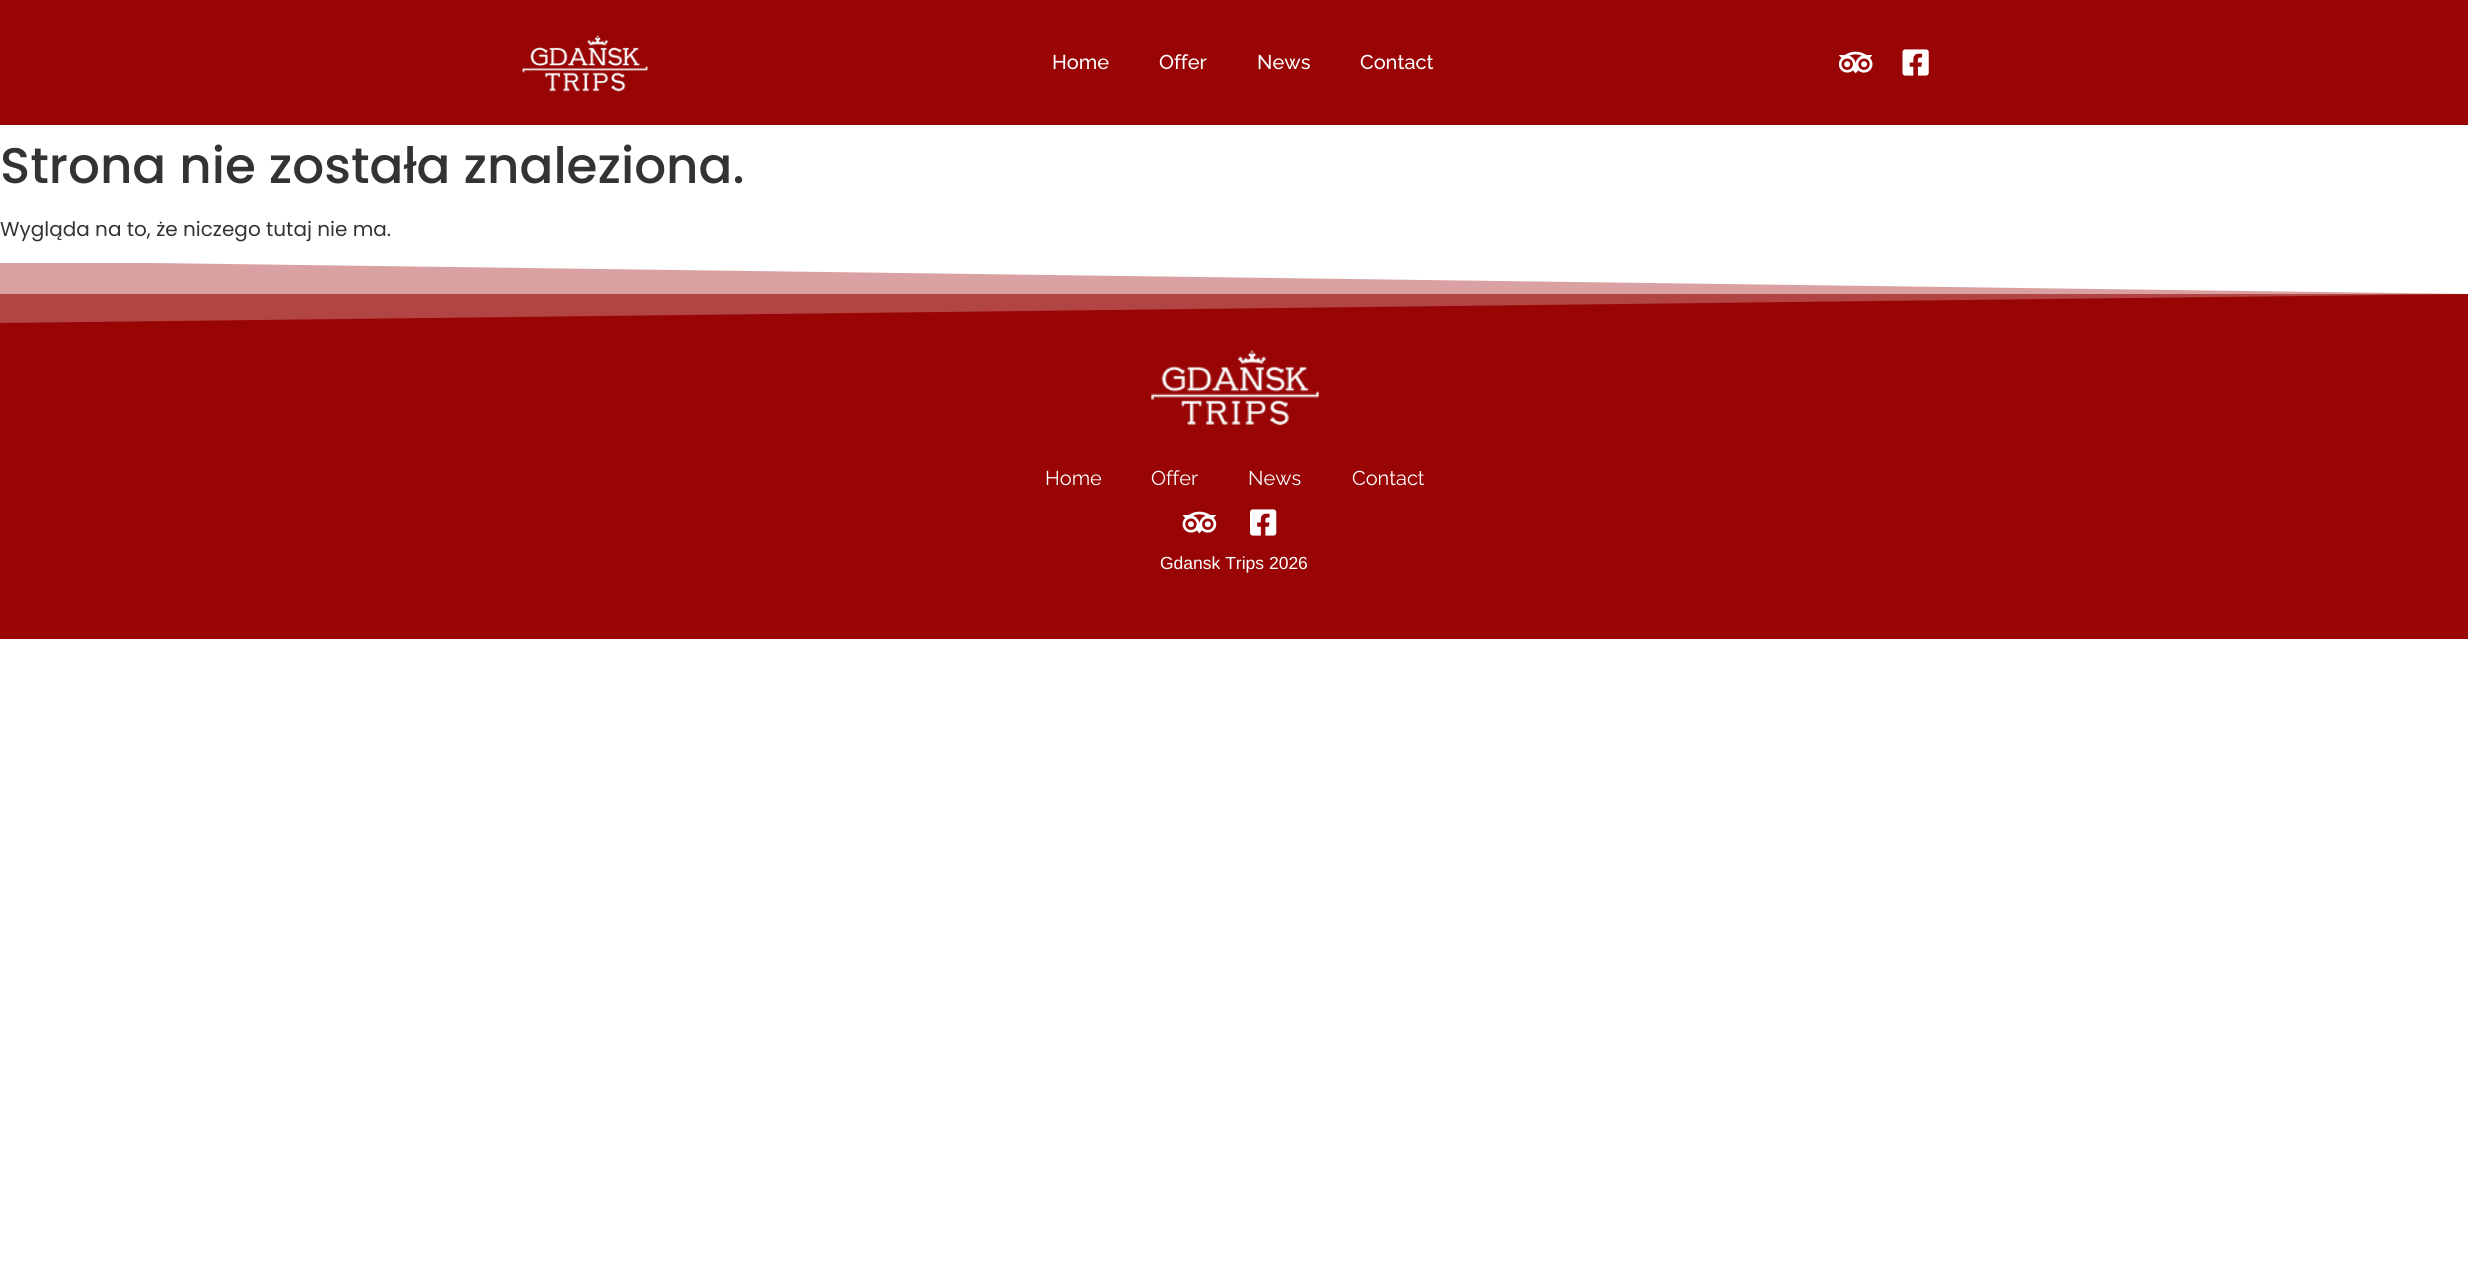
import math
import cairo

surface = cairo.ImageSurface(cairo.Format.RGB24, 2468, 1288)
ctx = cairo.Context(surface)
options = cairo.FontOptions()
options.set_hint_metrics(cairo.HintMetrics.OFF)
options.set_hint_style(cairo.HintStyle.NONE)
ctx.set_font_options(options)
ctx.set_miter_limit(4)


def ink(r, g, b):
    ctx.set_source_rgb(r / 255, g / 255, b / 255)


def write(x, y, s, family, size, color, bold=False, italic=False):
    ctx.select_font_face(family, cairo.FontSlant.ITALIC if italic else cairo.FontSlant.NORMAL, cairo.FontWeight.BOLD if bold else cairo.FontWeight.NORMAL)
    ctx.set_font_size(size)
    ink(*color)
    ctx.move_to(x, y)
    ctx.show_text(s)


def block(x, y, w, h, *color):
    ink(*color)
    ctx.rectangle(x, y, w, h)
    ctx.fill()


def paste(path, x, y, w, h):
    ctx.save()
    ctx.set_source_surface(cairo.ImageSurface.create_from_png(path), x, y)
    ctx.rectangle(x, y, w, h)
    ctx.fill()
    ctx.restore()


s1 = dict(family="Raleway Medium", size=20, color=(255, 255, 255))
s2 = dict(family="Poppins Medium", size=50, color=(51, 51, 51))
s3 = dict(family="Poppins", size=20, color=(51, 51, 51))
s4 = dict(family="Raleway", size=20, color=(255, 255, 255))
s5 = dict(family="Liberation Sans", size=17.5, color=(255, 255, 255))

ink(255, 255, 255)
ctx.paint()
block(0, 0, 2468, 125, 153, 5, 5)
paste("pic1.png", 522, 35, 126, 57)
write(1052, 69, "Home", **s1)
write(1159, 69, "Offer", **s1)
write(1257, 69, "News", **s1)
write(1360, 69, "Contact", **s1)
paste("pic2.png", 1839, 51, 34, 23)
paste("pic3.png", 1902, 49, 27, 27)
write(0, 183, "Strona nie została znaleziona.", **s2)
write(0, 236, "Wygląda na to, że niczego tutaj nie ma.", **s3)
block(0, 294, 2468, 345, 153, 5, 5)
block(0, 263, 2468, 31, 204, 130, 130)
ink(255, 255, 255)
ctx.new_path()
ctx.move_to(0, 261)
ctx.line_to(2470, 261)
ctx.line_to(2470, 294)
ctx.close_path()
ctx.fill()
ctx.set_source_rgba(1, 1, 1, 0.25)
ctx.new_path()
ctx.move_to(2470, 261)
ctx.line_to(0, 261)
ctx.line_to(0, 323)
ctx.line_to(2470, 294)
ctx.close_path()
ctx.fill()
paste("pic4.png", 1151, 350, 168, 75)
write(1045, 485, "Home", **s4)
write(1151, 485, "Offer", **s4)
write(1248, 485, "News", **s4)
write(1352, 485, "Contact", **s4)
paste("pic5.png", 1182, 511, 35, 23)
paste("pic6.png", 1250, 509, 27, 27)
write(1160, 569, "Gdansk Trips 2026", **s5)
surface.write_to_png("screenshot.png")
